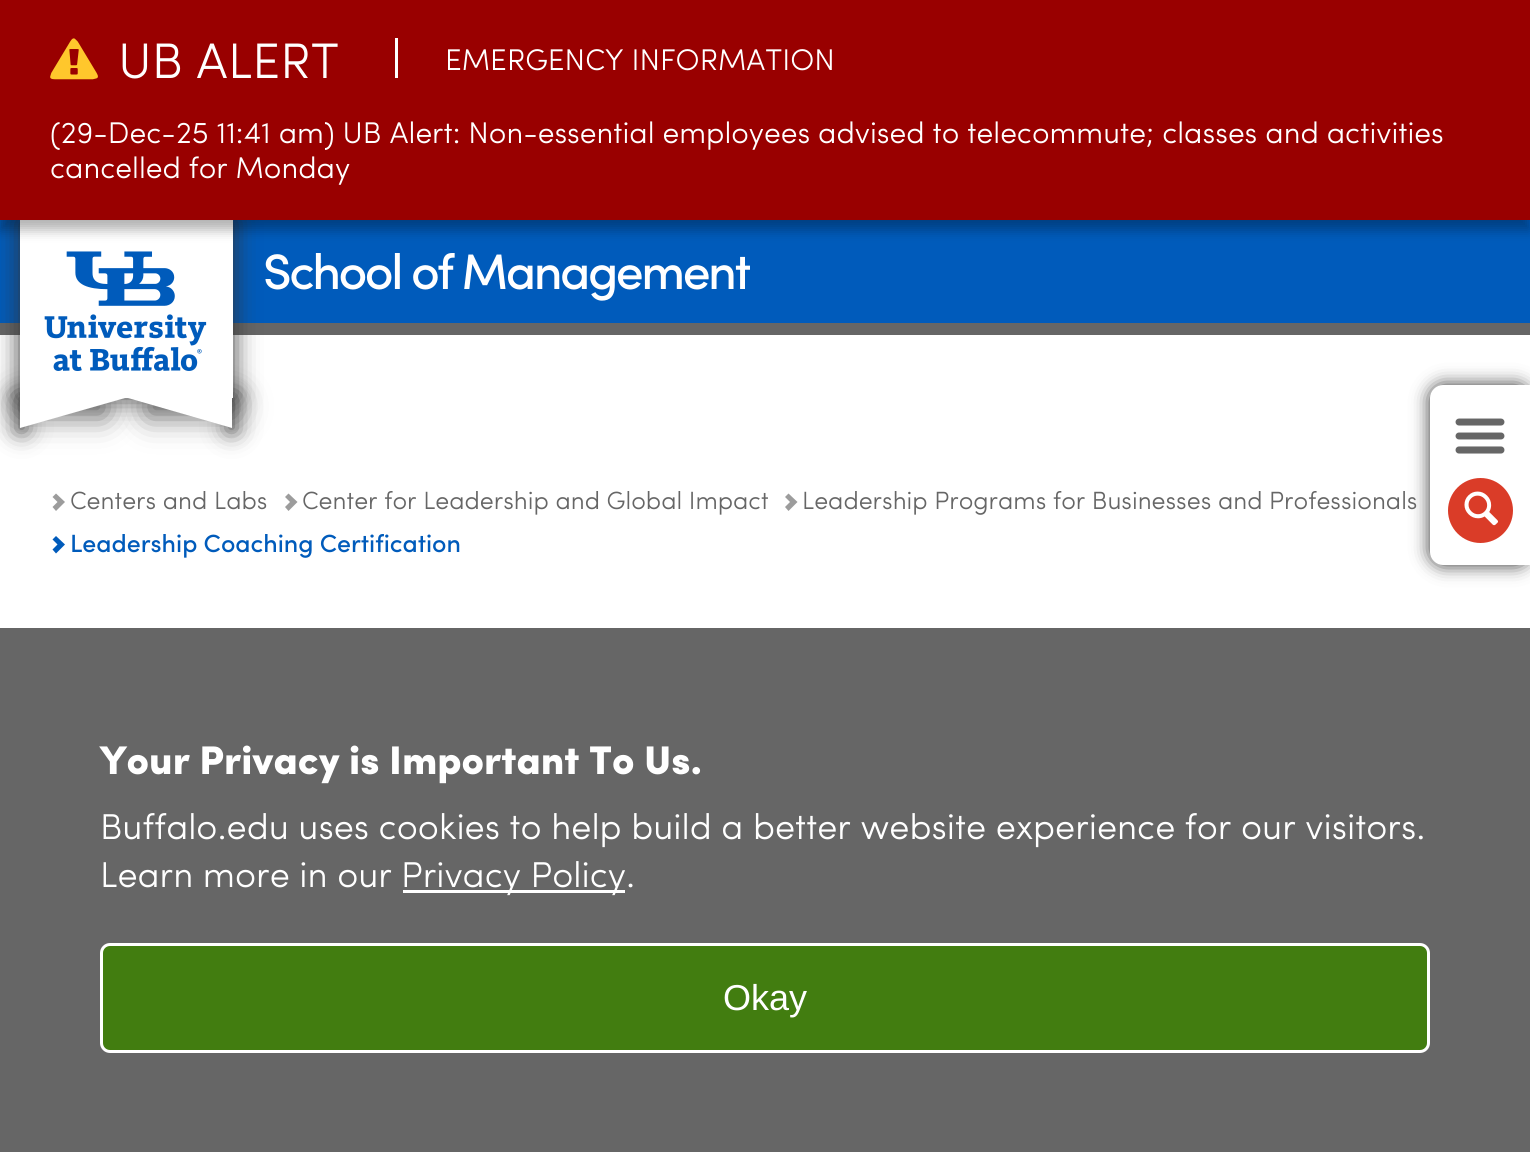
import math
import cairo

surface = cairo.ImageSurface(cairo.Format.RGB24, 1530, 1152)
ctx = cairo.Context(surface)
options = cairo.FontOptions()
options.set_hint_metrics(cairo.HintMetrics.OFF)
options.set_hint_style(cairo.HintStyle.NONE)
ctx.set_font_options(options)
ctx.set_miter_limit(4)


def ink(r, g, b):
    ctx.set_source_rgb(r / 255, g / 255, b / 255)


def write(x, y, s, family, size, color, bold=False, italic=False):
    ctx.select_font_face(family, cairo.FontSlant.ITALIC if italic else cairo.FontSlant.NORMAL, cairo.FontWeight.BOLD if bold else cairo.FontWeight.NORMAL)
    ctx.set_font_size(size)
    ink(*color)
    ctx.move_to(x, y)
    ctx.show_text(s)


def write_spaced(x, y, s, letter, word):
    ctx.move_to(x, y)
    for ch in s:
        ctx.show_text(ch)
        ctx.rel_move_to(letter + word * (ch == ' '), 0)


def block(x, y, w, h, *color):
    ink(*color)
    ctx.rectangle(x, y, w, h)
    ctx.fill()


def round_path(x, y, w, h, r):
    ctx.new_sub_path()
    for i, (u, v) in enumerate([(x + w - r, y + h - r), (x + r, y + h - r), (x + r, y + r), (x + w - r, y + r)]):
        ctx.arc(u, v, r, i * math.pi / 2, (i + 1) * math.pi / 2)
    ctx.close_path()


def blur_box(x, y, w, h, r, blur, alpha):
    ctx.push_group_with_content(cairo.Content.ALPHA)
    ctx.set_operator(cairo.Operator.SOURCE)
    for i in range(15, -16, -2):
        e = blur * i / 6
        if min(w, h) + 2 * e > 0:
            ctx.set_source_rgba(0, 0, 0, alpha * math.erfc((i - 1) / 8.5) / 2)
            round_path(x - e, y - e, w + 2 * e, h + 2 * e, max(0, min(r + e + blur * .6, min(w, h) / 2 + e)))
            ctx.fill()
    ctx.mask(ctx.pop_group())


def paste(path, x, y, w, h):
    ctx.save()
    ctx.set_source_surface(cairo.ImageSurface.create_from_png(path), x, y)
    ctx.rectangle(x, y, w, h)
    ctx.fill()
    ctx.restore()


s1 = dict(family="Sofia", size=50, color=(255, 255, 255))
s2 = dict(family="Sofia", size=30, color=(255, 255, 255))
s3 = dict(family="Sofia", size=25, color=(102, 102, 102))
s4 = dict(family="Sofia Medium", size=25, color=(0, 91, 187))
s5 = dict(family="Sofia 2", size=40, color=(255, 255, 255))
s6 = dict(family="Sofia", size=36, color=(255, 255, 255))
s7 = dict(family="Liberation Sans", size=36, color=(255, 255, 255))

ink(255, 255, 255)
ctx.paint()
block(0, 220, 1530, 103, 0, 91, 187)
block(0, 323, 1530, 12, 102, 102, 102)
ink(51, 51, 51)
blur_box(20, 220, 213, 178, 0, 12.5, 1)
ink(85, 85, 85)
blur_box(20, 400, 83, 13, 2.5, 16.5, 1)
blur_box(150, 400, 83, 13, 2.5, 16.5, 1)
ink(51, 51, 51)
blur_box(20, 398, 3, 30, 0, 12.5, 1)
blur_box(230, 398, 3, 30, 0, 12.5, 1)
block(20, 220, 213, 178, 255, 255, 255)
ink(0, 0, 0)
blur_box(0, 10, 1530, 220, 0, 6, 0.3)
block(0, 0, 1530, 220, 153, 0, 0)
block(395, 38, 3, 40, 255, 255, 255)
paste("pic1.png", 50, 38, 48, 42)
write(118, 78, "UB ALERT", **s1)
write(445, 70, "EMERGENCY INFORMATION", **s2)
write(50, 143, "(29-Dec-25 11:41 am) UB Alert: Non-essential employees advised to telecommute; classes and activities", **s2)
write(50, 178, "cancelled for Monday", **s2)
paste("pic2.png", 44, 251, 163, 120)
ctx.new_path()
ctx.move_to(232, 398)
ctx.line_to(232, 428)
ctx.line_to(128, 398)
ctx.close_path()
ctx.fill()
ctx.new_path()
ctx.move_to(20, 428)
ctx.line_to(20, 398)
ctx.line_to(125, 398)
ctx.close_path()
ctx.fill()
ctx.select_font_face("Sofia Medium")
ctx.set_font_size(50)
write_spaced(263, 289, "School of Management", -2.5, 0)
ink(51, 51, 51)
blur_box(1430, 385, 100, 180, 13, 9, 1)
ink(255, 255, 255)
ctx.new_path()
ctx.move_to(1443, 385)
ctx.line_to(1530, 385)
ctx.line_to(1530, 565)
ctx.line_to(1443, 565)
ctx.curve_to(1436, 565, 1430, 559, 1430, 552)
ctx.line_to(1430, 398)
ctx.curve_to(1430, 391, 1436, 385, 1443, 385)
ctx.close_path()
ctx.fill()
paste("pic3.png", 1455, 418, 50, 36)
ink(218, 60, 40)
ctx.arc(1480.5, 510.5, 32.5, 0, 2 * math.pi)
ctx.fill()
paste("pic4.png", 1464, 491, 34, 35)
ink(156, 156, 156)
ctx.new_path()
ctx.move_to(65, 502)
ctx.line_to(56, 511)
ctx.line_to(52.5, 507)
ctx.line_to(57.5, 502)
ctx.line_to(52.5, 497)
ctx.line_to(56, 493.5)
ctx.close_path()
ctx.fill()
write(70, 509, "Centers and Labs", **s3)
ink(156, 156, 156)
ctx.new_path()
ctx.move_to(297.5, 502)
ctx.line_to(288.5, 511)
ctx.line_to(285, 507)
ctx.line_to(290, 502)
ctx.line_to(285, 497)
ctx.line_to(288.5, 493.5)
ctx.close_path()
ctx.fill()
write(302, 509, "Center for Leadership and Global Impact", **s3)
ink(156, 156, 156)
ctx.new_path()
ctx.move_to(797.5, 502)
ctx.line_to(788.5, 511)
ctx.line_to(785, 507)
ctx.line_to(790, 502)
ctx.line_to(785, 497)
ctx.line_to(788.5, 493.5)
ctx.close_path()
ctx.fill()
write(802, 509, "Leadership Programs for Businesses and Professionals", **s3)
ink(0, 91, 187)
ctx.new_path()
ctx.move_to(65, 544.5)
ctx.line_to(56, 553.5)
ctx.line_to(52.5, 549.5)
ctx.line_to(57.5, 544.5)
ctx.line_to(52.5, 539.5)
ctx.line_to(56, 536)
ctx.close_path()
ctx.fill()
write(70, 552, "Leadership Coaching Certification", **s4)
block(0, 628, 1530, 524, 102, 102, 102)
write(100, 774, "Your Privacy is Important To Us.", **s5)
write(100, 839, "Buffalo.edu uses cookies to help build a better website experience for our visitors.", **s6)
write(100, 887, "Learn more in our", **s6)
block(403, 890, 222, 3, 255, 255, 255)
write(401, 887, "Privacy Policy.", **s6)
ink(66, 125, 16)
round_path(101.5, 944.5, 1327, 107, 8.5)
ctx.fill_preserve()
ink(255, 255, 255)
ctx.set_line_width(3)
ctx.stroke()
write(723, 1010, "Okay", **s7)
surface.write_to_png("screenshot.png")
